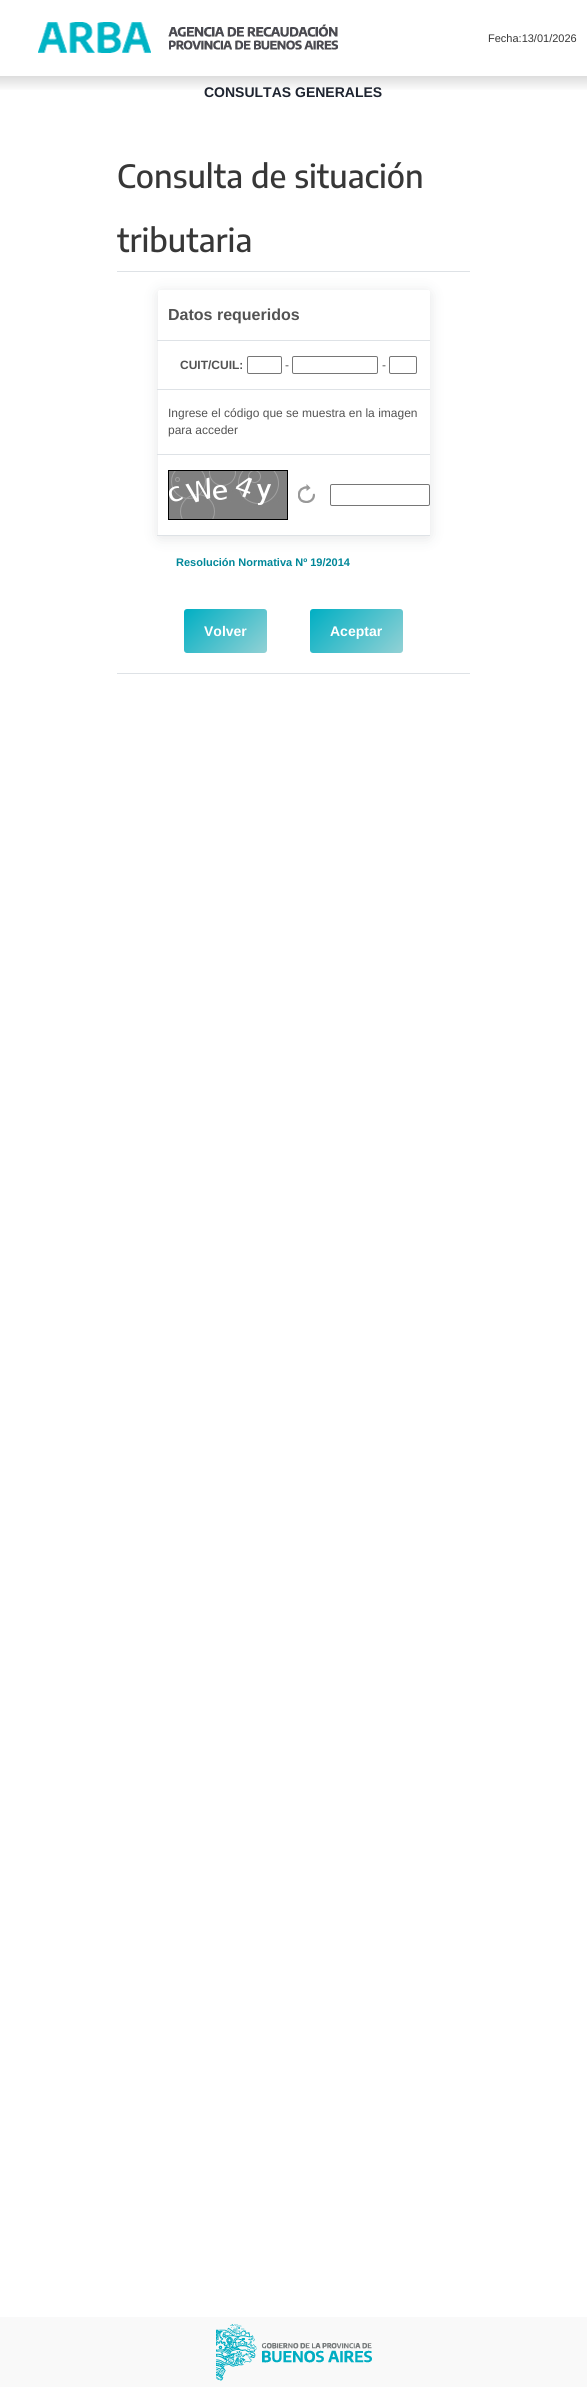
import math
import cairo

surface = cairo.ImageSurface(cairo.Format.RGB24, 587, 2387)
ctx = cairo.Context(surface)
options = cairo.FontOptions()
options.set_hint_metrics(cairo.HintMetrics.OFF)
options.set_hint_style(cairo.HintStyle.NONE)
ctx.set_font_options(options)
ctx.set_miter_limit(4)


def ink(r, g, b):
    ctx.set_source_rgb(r / 255, g / 255, b / 255)


def write(x, y, s, family, size, color, bold=False, italic=False):
    ctx.select_font_face(family, cairo.FontSlant.ITALIC if italic else cairo.FontSlant.NORMAL, cairo.FontWeight.BOLD if bold else cairo.FontWeight.NORMAL)
    ctx.set_font_size(size)
    ink(*color)
    ctx.move_to(x, y)
    ctx.show_text(s)


def block(x, y, w, h, *color):
    ink(*color)
    ctx.rectangle(x, y, w, h)
    ctx.fill()


def round_path(x, y, w, h, r):
    ctx.new_sub_path()
    for i, (u, v) in enumerate([(x + w - r, y + h - r), (x + r, y + h - r), (x + r, y + r), (x + w - r, y + r)]):
        ctx.arc(u, v, r, i * math.pi / 2, (i + 1) * math.pi / 2)
    ctx.close_path()


def blur_box(x, y, w, h, r, blur, alpha):
    ctx.push_group_with_content(cairo.Content.ALPHA)
    ctx.set_operator(cairo.Operator.SOURCE)
    for i in range(15, -16, -2):
        e = blur * i / 6
        if min(w, h) + 2 * e > 0:
            ctx.set_source_rgba(0, 0, 0, alpha * math.erfc((i - 1) / 8.5) / 2)
            round_path(x - e, y - e, w + 2 * e, h + 2 * e, max(0, min(r + e + blur * .6, min(w, h) / 2 + e)))
            ctx.fill()
    ctx.mask(ctx.pop_group())


def paste(path, x, y, w, h):
    ctx.save()
    ctx.set_source_surface(cairo.ImageSurface.create_from_png(path), x, y)
    ctx.rectangle(x, y, w, h)
    ctx.fill()
    ctx.restore()


s1 = dict(family="Liberation Sans", size=11, color=(55, 55, 55))
s2 = dict(family="Liberation Sans", size=14, color=(30, 36, 48), bold=True)
s3 = dict(family="Encode Sans Medium", size=32, color=(55, 55, 55))
s4 = dict(family="Liberation Sans", size=16, color=(83, 83, 83), bold=True)
s5 = dict(family="Liberation Sans", size=12, color=(83, 83, 83), bold=True)
s6 = dict(family="Liberation Sans", size=12, color=(83, 83, 83))
s7 = dict(family="Liberation Sans", size=11, color=(0, 135, 153), bold=True)
s8 = dict(family="Liberation Sans", size=14, color=(255, 255, 255), bold=True)

ink(255, 255, 255)
ctx.paint()
paste("pic1.png", 38, 22, 300, 31)
write(488, 42, "Fecha:13/01/2026", **s1)
gradient = cairo.LinearGradient(294, 76, 294, 107)
gradient.add_color_stop_rgba(0, 0.867, 0.867, 0.867, 1)
gradient.add_color_stop_rgba(0.5, 1, 1, 1, 1)
gradient.add_color_stop_rgba(1, 1, 1, 1, 1)
ctx.set_source(gradient)
ctx.rectangle(0, 76, 587, 14)
ctx.fill()
write(204, 97, "CONSULTAS GENERALES", **s2)
block(117, 271, 353, 1, 222, 226, 230)
write(117, 188, "Consulta de situación", **s3)
write(117, 252, "tributaria", **s3)
ctx.save()
ctx.set_fill_rule(cairo.FillRule.EVEN_ODD)
ctx.new_path()
ctx.move_to(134, 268)
ctx.line_to(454, 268)
ctx.line_to(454, 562)
ctx.line_to(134, 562)
ctx.close_path()
ctx.move_to(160, 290)
ctx.line_to(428, 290)
ctx.curve_to(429, 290, 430, 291, 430, 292)
ctx.line_to(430, 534)
ctx.curve_to(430, 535, 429, 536, 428, 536)
ctx.line_to(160, 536)
ctx.curve_to(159, 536, 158, 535, 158, 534)
ctx.line_to(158, 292)
ctx.curve_to(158, 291, 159, 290, 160, 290)
ctx.close_path()
ctx.clip()
ink(30, 36, 48)
blur_box(158, 292, 272, 246, 2, 7.5, 0.12)
ctx.restore()
block(157, 340, 273, 1, 222, 226, 230)
write(168, 320, "Datos requeridos", **s4)
block(157, 389, 273, 1, 222, 226, 230)
write(180, 369, "CUIT/CUIL:", **s5)
round_path(247.5, 356.5, 34, 17, 1.5)
ink(118, 118, 118)
ctx.set_line_width(1)
ctx.stroke()
write(285, 369, "-", **s6)
round_path(292.5, 356.5, 85, 17, 1.5)
ink(118, 118, 118)
ctx.stroke()
write(382, 369, "-", **s6)
round_path(389.5, 356.5, 27, 17, 1.5)
ink(118, 118, 118)
ctx.stroke()
block(157, 454, 273, 1, 222, 226, 230)
write(168, 417, "Ingrese el código que se muestra en la imagen", **s6)
write(168, 434, "para acceder", **s6)
block(157, 535, 273, 1, 222, 226, 230)
paste("pic2.png", 168, 470, 120, 50)
paste("pic3.png", 298, 484, 17, 19)
round_path(330.5, 484.5, 99, 21, 1.5)
ink(118, 118, 118)
ctx.stroke()
write(176, 566, "Resolución Normativa Nº 19/2014", **s7)
block(117, 673, 353, 1, 222, 226, 230)
gradient = cairo.LinearGradient(194, 599, 257, 663)
gradient.add_color_stop_rgba(0, 0, 0.686, 0.765, 1)
gradient.add_color_stop_rgba(1, 0.573, 0.82, 0.835, 1)
ctx.set_source(gradient)
round_path(184, 609, 83, 44, 3)
ctx.fill()
write(204, 636, "Volver", **s8)
gradient = cairo.LinearGradient(322, 597, 391, 665)
gradient.add_color_stop_rgba(0, 0, 0.686, 0.765, 1)
gradient.add_color_stop_rgba(1, 0.573, 0.82, 0.835, 1)
ctx.set_source(gradient)
round_path(310, 609, 93, 44, 3)
ctx.fill()
write(330, 636, "Aceptar", **s8)
block(0, 2317, 587, 70, 249, 249, 249)
paste("pic4.png", 216, 2324, 156, 57)
surface.write_to_png("screenshot.png")
